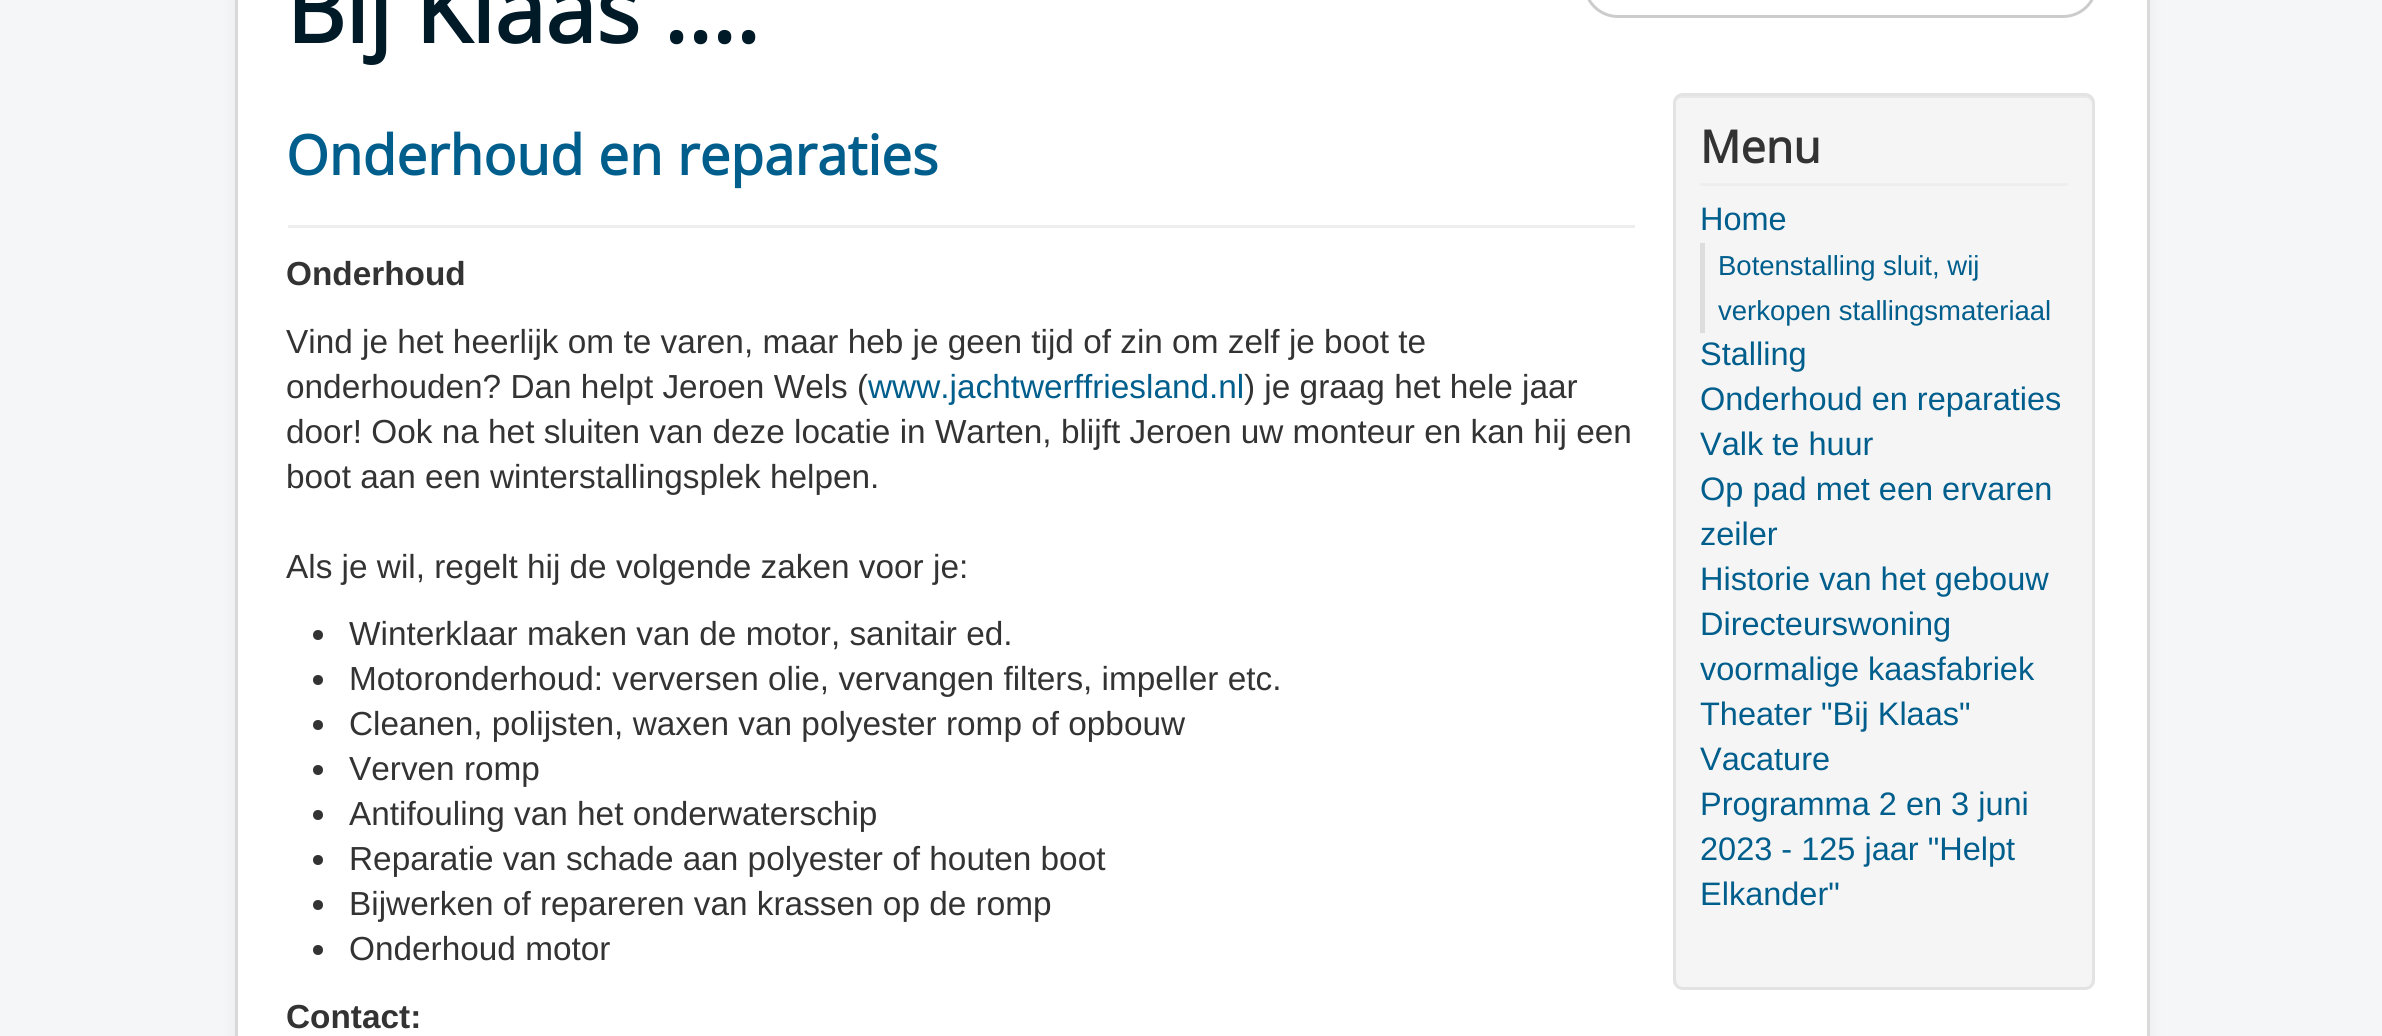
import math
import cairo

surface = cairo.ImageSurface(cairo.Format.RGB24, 2382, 1036)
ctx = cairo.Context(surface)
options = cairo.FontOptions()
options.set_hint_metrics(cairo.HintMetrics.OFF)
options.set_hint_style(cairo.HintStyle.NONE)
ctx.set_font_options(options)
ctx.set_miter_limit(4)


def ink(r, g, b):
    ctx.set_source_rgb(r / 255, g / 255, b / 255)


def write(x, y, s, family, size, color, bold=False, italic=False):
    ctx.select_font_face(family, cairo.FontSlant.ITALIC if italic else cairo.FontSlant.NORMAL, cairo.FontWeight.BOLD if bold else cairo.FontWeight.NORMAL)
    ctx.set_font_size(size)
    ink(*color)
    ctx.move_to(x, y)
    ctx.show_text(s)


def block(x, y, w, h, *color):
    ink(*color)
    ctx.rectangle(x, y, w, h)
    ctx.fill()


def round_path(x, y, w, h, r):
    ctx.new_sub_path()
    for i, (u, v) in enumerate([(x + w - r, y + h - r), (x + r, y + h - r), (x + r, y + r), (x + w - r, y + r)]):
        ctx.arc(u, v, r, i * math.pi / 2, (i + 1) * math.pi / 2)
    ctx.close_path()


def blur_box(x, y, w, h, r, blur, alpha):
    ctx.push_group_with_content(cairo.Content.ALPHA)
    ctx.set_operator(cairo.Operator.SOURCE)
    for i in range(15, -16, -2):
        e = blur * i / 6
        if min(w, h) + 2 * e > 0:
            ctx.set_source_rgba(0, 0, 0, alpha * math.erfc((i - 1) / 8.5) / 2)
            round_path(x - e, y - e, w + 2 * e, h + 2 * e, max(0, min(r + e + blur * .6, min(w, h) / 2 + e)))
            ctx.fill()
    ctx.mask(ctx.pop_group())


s1 = dict(family="Open Sans", size=91.5, color=(0, 26, 39), bold=True)
s2 = dict(family="Open Sans", size=55, color=(0, 94, 141), bold=True)
s3 = dict(family="Liberation Sans", size=33.35, color=(51, 51, 51), bold=True)
s4 = dict(family="Liberation Sans", size=33.35, color=(51, 51, 51))
s5 = dict(family="Liberation Sans", size=33.35, color=(0, 94, 141))
s6 = dict(family="Open Sans", size=45, color=(51, 51, 51), bold=True)
s7 = dict(family="Liberation Sans", size=32.5, color=(0, 94, 141))
s8 = dict(family="Liberation Sans", size=27.5, color=(0, 94, 141))

ink(244, 246, 247)
ctx.paint()
ink(0, 0, 0)
blur_box(235, -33, 1915, 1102, 10, 7.5, 0.05)
ink(255, 255, 255)
ctx.rectangle(236.5, -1.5, 1912, 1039)
ctx.fill_preserve()
ink(217, 217, 217)
ctx.set_line_width(3)
ctx.stroke()
round_path(1584.5, -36.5, 512, 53, 33.5)
ink(204, 204, 204)
ctx.stroke()
write(286, 43, "Bij Klaas ....", **s1)
block(288, 225, 1347, 3, 238, 238, 238)
write(286, 175, "Onderhoud en reparaties", **s2)
write(286, 285, "Onderhoud", **s3)
write(286, 353, "Vind je het heerlijk om te varen, maar heb je geen tijd of zin om zelf je boot te", **s4)
write(286, 398, "onderhouden? Dan helpt Jeroen Wels (", **s4)
write(868, 398, "www.jachtwerffriesland.nl", **s5)
write(1244, 398, ") je graag het hele jaar", **s4)
write(286, 443, "door! Ook na het sluiten van deze locatie in Warten, blijft Jeroen uw monteur en kan hij een", **s4)
write(286, 488, "boot aan een winterstallingsplek helpen.", **s4)
write(286, 578, "Als je wil, regelt hij de volgende zaken voor je:", **s4)
ctx.new_path()
ctx.arc(318, 635, 5, 0, 2 * math.pi)
ctx.fill()
write(349, 645, "Winterklaar maken van de motor, sanitair ed.", **s4)
ctx.new_path()
ctx.arc(318, 680, 5, 0, 2 * math.pi)
ctx.fill()
write(349, 690, "Motoronderhoud: verversen olie, vervangen filters, impeller etc.", **s4)
ctx.new_path()
ctx.arc(318, 725, 5, 0, 2 * math.pi)
ctx.fill()
write(349, 735, "Cleanen, polijsten, waxen van polyester romp of opbouw", **s4)
ctx.new_path()
ctx.arc(318, 770, 5, 0, 2 * math.pi)
ctx.fill()
write(349, 780, "Verven romp", **s4)
ctx.new_path()
ctx.arc(318, 815, 5, 0, 2 * math.pi)
ctx.fill()
write(349, 825, "Antifouling van het onderwaterschip", **s4)
ctx.new_path()
ctx.arc(318, 860, 5, 0, 2 * math.pi)
ctx.fill()
write(349, 870, "Reparatie van schade aan polyester of houten boot", **s4)
ctx.new_path()
ctx.arc(318, 905, 5, 0, 2 * math.pi)
ctx.fill()
write(349, 915, "Bijwerken of repareren van krassen op de romp", **s4)
ctx.new_path()
ctx.arc(318, 950, 5, 0, 2 * math.pi)
ctx.fill()
write(349, 960, "Onderhoud motor", **s4)
write(286, 1028, "Contact:", **s3)
ink(245, 245, 245)
round_path(1673, 93, 422, 897, 10)
ctx.fill()
ink(233, 233, 233)
ctx.new_path()
ctx.move_to(1682, 98)
ctx.line_to(2085, 98)
ctx.curve_to(2089, 98, 2092, 101, 2092, 105)
ctx.line_to(2092, 984)
ctx.curve_to(2093, 983, 2093, 982, 2093, 980)
ctx.line_to(2093, 103)
ctx.curve_to(2093, 99, 2089, 95, 2085, 95)
ctx.line_to(1683, 95)
ctx.curve_to(1679, 95, 1675, 99, 1675, 103)
ctx.line_to(1675, 105)
ctx.curve_to(1675, 101, 1678, 98, 1682, 98)
ctx.close_path()
ctx.fill()
round_path(1674.5, 94.5, 419, 894, 8.5)
ink(227, 227, 227)
ctx.stroke()
block(1700, 183, 368, 3, 238, 238, 238)
write(1700, 163, "Menu", **s6)
write(1700, 230, "Home", **s7)
block(1700, 243, 5, 90, 221, 221, 221)
write(1718, 275, "Botenstalling sluit, wij", **s8)
write(1718, 320, "verkopen stallingsmateriaal", **s8)
write(1700, 365, "Stalling", **s7)
write(1700, 410, "Onderhoud en reparaties", **s7)
write(1700, 455, "Valk te huur", **s7)
write(1700, 500, "Op pad met een ervaren", **s7)
write(1700, 545, "zeiler", **s7)
write(1700, 590, "Historie van het gebouw", **s7)
write(1700, 635, "Directeurswoning", **s7)
write(1700, 680, "voormalige kaasfabriek", **s7)
write(1700, 725, "Theater \"Bij Klaas\"", **s7)
write(1700, 770, "Vacature", **s7)
write(1700, 815, "Programma 2 en 3 juni", **s7)
write(1700, 860, "2023 - 125 jaar \"Helpt", **s7)
write(1700, 905, "Elkander\"", **s7)
surface.write_to_png("screenshot.png")
